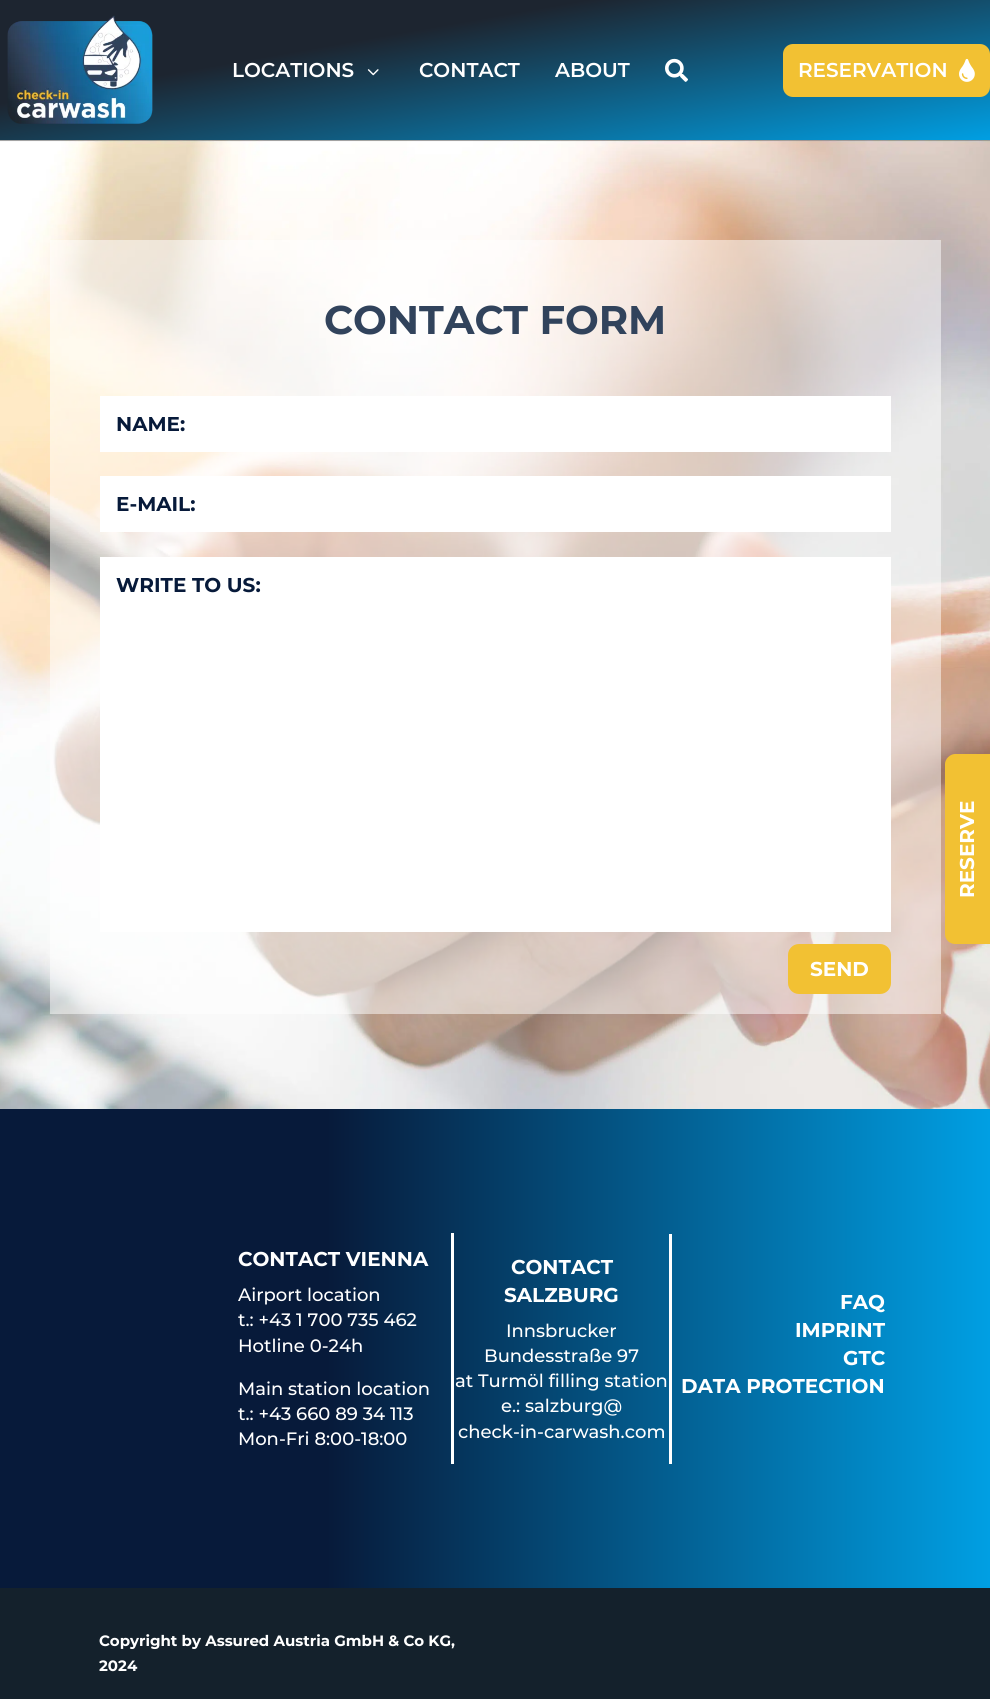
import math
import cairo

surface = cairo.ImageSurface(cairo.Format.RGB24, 990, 1699)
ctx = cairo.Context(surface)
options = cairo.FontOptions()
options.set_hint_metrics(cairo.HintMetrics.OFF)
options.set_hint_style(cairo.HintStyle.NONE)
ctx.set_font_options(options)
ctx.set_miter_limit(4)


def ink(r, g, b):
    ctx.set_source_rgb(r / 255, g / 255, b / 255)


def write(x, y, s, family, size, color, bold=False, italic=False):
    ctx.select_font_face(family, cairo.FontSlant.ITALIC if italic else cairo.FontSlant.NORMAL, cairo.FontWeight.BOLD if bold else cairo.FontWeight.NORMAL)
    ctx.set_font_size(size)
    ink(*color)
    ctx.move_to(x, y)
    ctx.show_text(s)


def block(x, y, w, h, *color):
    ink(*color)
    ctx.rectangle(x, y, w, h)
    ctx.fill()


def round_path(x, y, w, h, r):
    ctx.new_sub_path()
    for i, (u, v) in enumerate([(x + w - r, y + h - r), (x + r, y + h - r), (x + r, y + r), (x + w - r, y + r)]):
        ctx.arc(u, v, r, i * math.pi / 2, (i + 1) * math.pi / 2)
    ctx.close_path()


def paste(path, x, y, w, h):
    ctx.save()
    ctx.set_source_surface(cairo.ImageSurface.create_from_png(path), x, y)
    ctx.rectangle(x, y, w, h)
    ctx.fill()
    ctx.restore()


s1 = dict(family="Montserrat SemiBold", size=20, color=(255, 255, 255))
s2 = dict(family="Montserrat", size=40, color=(49, 67, 92), bold=True)
s3 = dict(family="Montserrat", size=20, color=(7, 26, 58), bold=True)
s4 = dict(family="Montserrat", size=20, color=(255, 255, 255), bold=True)
s5 = dict(family="Montserrat", size=15, color=(255, 255, 255), bold=True)
s6 = dict(family="Montserrat Medium", size=18, color=(255, 255, 255))

ink(255, 255, 255)
ctx.paint()
gradient = cairo.LinearGradient(468, -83, 522, 223)
gradient.add_color_stop_rgba(0.33, 0.114, 0.145, 0.188, 1)
gradient.add_color_stop_rgba(1, 0, 0.624, 0.89, 1)
ctx.set_source(gradient)
ctx.rectangle(0, 0, 990, 140)
ctx.fill()
paste("pic1.png", 7, 15, 146, 109)
write(232, 77, "LOCATIONS", **s1)
paste("pic2.png", 367, 69, 12, 7)
write(419, 77, "CONTACT", **s1)
write(555, 77, "ABOUT", **s1)
paste("pic3.png", 665, 58, 23, 24)
ink(242, 193, 51)
round_path(783, 44, 207, 53, 10)
ctx.fill()
write(798, 77, "RESERVATION", **s1)
paste("pic4.png", 959, 58, 16, 24)
paste("pic5.png", 0, 140, 990, 969)
ctx.set_source_rgba(1, 1, 1, 0.5)
ctx.rectangle(50, 240, 891, 774)
ctx.fill()
write(324, 334, "CONTACT FORM", **s2)
block(100, 396, 791, 56, 255, 255, 255)
write(116, 431, "NAME:", **s3)
block(100, 476, 791, 56, 255, 255, 255)
write(116, 511, "E-MAIL:", **s3)
block(100, 557, 791, 375, 255, 255, 255)
write(116, 592, "WRITE TO US:", **s3)
ink(242, 193, 51)
round_path(789, 945, 101, 48, 10)
ctx.fill_preserve()
ctx.stroke()
write(810, 976, "SEND", **s4)
block(0, 1588, 990, 111, 20, 33, 44)
ink(242, 193, 51)
ctx.new_path()
ctx.move_to(945, 934)
ctx.line_to(945, 764)
ctx.curve_to(945, 759, 950, 754, 955, 754)
ctx.line_to(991, 754)
ctx.line_to(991, 944)
ctx.line_to(955, 944)
ctx.curve_to(950, 944, 945, 940, 945, 934)
ctx.close_path()
ctx.fill()
ctx.save()
ctx.translate(974, 898)
ctx.rotate(-90 * math.pi / 180)
write(0, 0, "RESERVE", **s4)
ctx.restore()
write(99, 1646, "Copyright by Assured Austria GmbH & Co KG,", **s5)
write(99, 1671, "2024", **s5)
gradient = cairo.LinearGradient(0, 1349, 990, 1349)
gradient.add_color_stop_rgba(0.33, 0.027, 0.102, 0.227, 1)
gradient.add_color_stop_rgba(1, 0, 0.624, 0.89, 1)
ctx.set_source(gradient)
ctx.rectangle(0, 1109, 990, 479)
ctx.fill()
block(451, 1233, 3, 231, 255, 255, 255)
write(238, 1266, "CONTACT VIENNA", **s4)
write(238, 1301, "Airport location", **s6)
write(238, 1326, "t.: +43 1 700 735 462", **s6)
write(238, 1352, "Hotline 0-24h", **s6)
write(238, 1395, "Main station location", **s6)
write(238, 1420, "t.: +43 660 89 34 113", **s6)
write(238, 1445, "Mon-Fri 8:00-18:00", **s6)
write(511, 1274, "CONTACT", **s4)
write(504, 1302, "SALZBURG", **s4)
write(506, 1337, "Innsbrucker", **s6)
write(484, 1362, "Bundesstraße 97", **s6)
write(455, 1387, "at Turmöl filling station", **s6)
write(501, 1412, "e.: salzburg@", **s6)
write(458, 1438, "check-in-carwash.com", **s6)
block(669, 1234, 3, 230, 255, 255, 255)
write(840, 1309, "FAQ", **s4)
write(795, 1337, "IMPRINT", **s4)
write(843, 1365, "GTC", **s4)
write(681, 1393, "DATA PROTECTION", **s4)
surface.write_to_png("screenshot.png")
